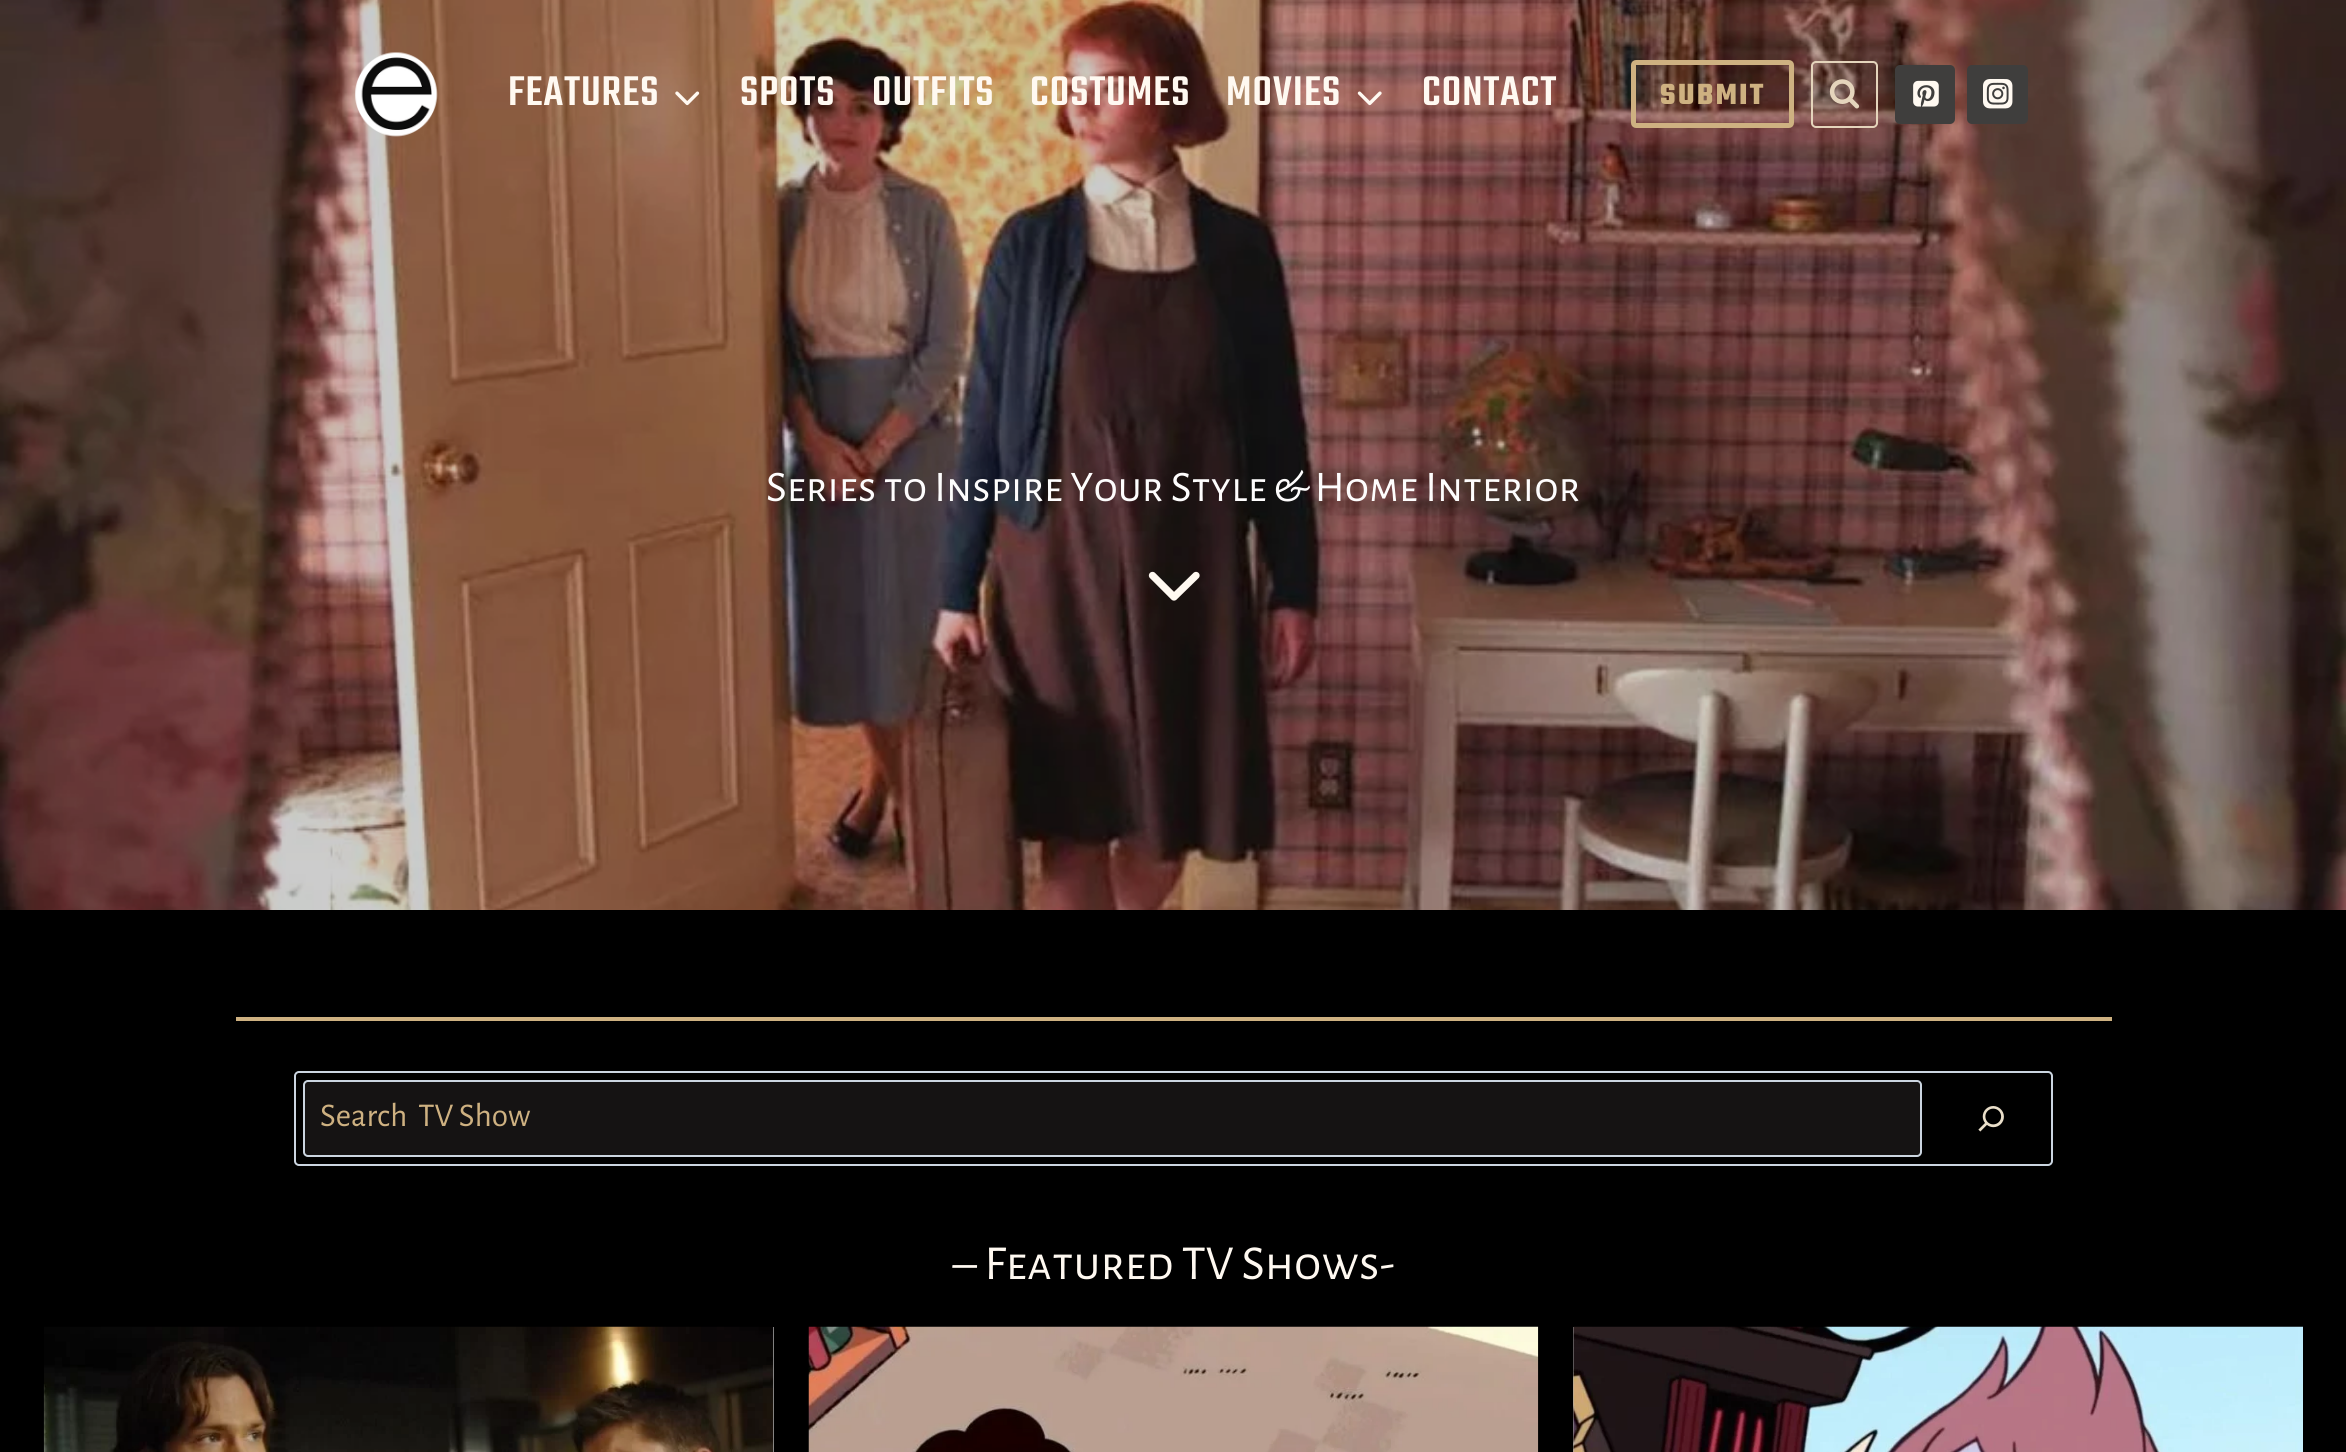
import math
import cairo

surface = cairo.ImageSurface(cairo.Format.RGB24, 2346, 1452)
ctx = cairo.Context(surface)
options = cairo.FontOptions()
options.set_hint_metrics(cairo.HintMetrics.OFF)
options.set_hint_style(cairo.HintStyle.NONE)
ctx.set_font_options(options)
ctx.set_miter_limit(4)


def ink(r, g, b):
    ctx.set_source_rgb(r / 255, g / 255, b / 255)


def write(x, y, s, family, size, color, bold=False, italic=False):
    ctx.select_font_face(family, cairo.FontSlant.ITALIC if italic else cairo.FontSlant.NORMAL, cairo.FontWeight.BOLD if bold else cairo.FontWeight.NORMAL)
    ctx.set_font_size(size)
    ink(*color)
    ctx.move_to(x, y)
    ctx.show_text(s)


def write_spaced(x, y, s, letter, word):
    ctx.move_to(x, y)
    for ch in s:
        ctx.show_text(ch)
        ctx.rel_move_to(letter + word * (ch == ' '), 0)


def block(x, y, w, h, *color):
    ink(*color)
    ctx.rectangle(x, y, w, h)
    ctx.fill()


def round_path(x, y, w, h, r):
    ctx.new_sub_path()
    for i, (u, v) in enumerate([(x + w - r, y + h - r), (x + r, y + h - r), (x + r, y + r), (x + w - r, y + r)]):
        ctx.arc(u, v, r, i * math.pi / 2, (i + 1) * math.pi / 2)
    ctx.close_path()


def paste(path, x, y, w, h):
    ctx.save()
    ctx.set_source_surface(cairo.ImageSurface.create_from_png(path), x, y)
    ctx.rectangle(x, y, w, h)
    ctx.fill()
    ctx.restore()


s1 = dict(family="Alegreya Sans SC", size=43.75, color=(254, 253, 253))
s2 = dict(family="Alegreya Sans", size=33.25, color=(206, 177, 129))
s3 = dict(family="Alegreya Sans SC", size=49, color=(255, 249, 241))

ink(0, 0, 0)
ctx.paint()
paste("pic7.png", 0, 0, 2346, 910)
paste("pic1.png", 355, 52, 83, 85)
ctx.select_font_face("Teko Medium")
ctx.set_font_size(45.5)
ink(255, 249, 241)
write_spaced(508, 105, "FEATURES", 1, 0)
paste("pic2.png", 675, 91, 25, 15)
write_spaced(740, 105, "SPOTS", 1, 0)
write_spaced(872, 105, "OUTFITS", 1, 0)
write_spaced(1030, 105, "COSTUMES", 1, 0)
write_spaced(1226, 105, "MOVIES", 1, 0)
paste("pic3.png", 1357, 91, 25, 15)
write_spaced(1422, 105, "CONTACT", 1, 0)
round_path(1633.5, 62.5, 158, 63, 2.5)
ink(206, 177, 129)
ctx.set_line_width(5)
ctx.stroke()
ctx.select_font_face("Teko", cairo.FontSlant.NORMAL, cairo.FontWeight.BOLD)
ctx.set_font_size(31.5)
write_spaced(1660, 104, "SUBMIT", 2.5, 0)
round_path(1812, 62, 65, 65, 4)
ink(229, 213, 188)
ctx.set_line_width(2)
ctx.stroke()
paste("pic4.png", 1829, 79, 31, 30)
ink(63, 62, 61)
round_path(1895, 65, 60, 59, 5)
ctx.fill()
paste("pic5.png", 1913, 80, 26, 27)
round_path(1967, 65, 61, 59, 5)
ctx.fill()
paste("pic6.png", 1983, 79, 30, 30)
write(766, 501, "Series to Inspire Your Style & Home Interior", **s1)
ctx.new_path()
ctx.move_to(1152.5, 575.5)
ctx.line_to(1174, 597)
ctx.line_to(1196, 575.5)
ink(255, 249, 241)
ctx.set_line_width(7.3)
ctx.set_line_cap(cairo.LineCap.ROUND)
ctx.set_line_join(cairo.LineJoin.ROUND)
ctx.stroke()
block(236, 1017, 1876, 4, 206, 177, 129)
round_path(295, 1072, 1757, 93, 4)
ink(203, 213, 224)
ctx.set_line_width(2)
ctx.set_line_cap(cairo.LineCap.BUTT)
ctx.set_line_join(cairo.LineJoin.MITER)
ctx.stroke()
ink(21, 19, 19)
round_path(304, 1081, 1617, 75, 4)
ctx.fill_preserve()
ink(203, 213, 224)
ctx.stroke()
write(320, 1126, "Search  TV Show", **s2)
paste("pic8.png", 1978, 1106, 26, 26)
write(953, 1279, "– Featured TV Shows-", **s3)
block(773, 1327, 1, 125, 170, 170, 170)
paste("pic9.png", 43, 1326, 731, 126)
paste("pic10.png", 808, 1326, 731, 126)
block(1573, 1327, 1, 125, 170, 170, 170)
paste("pic11.png", 1573, 1326, 730, 126)
surface.write_to_png("screenshot.png")
